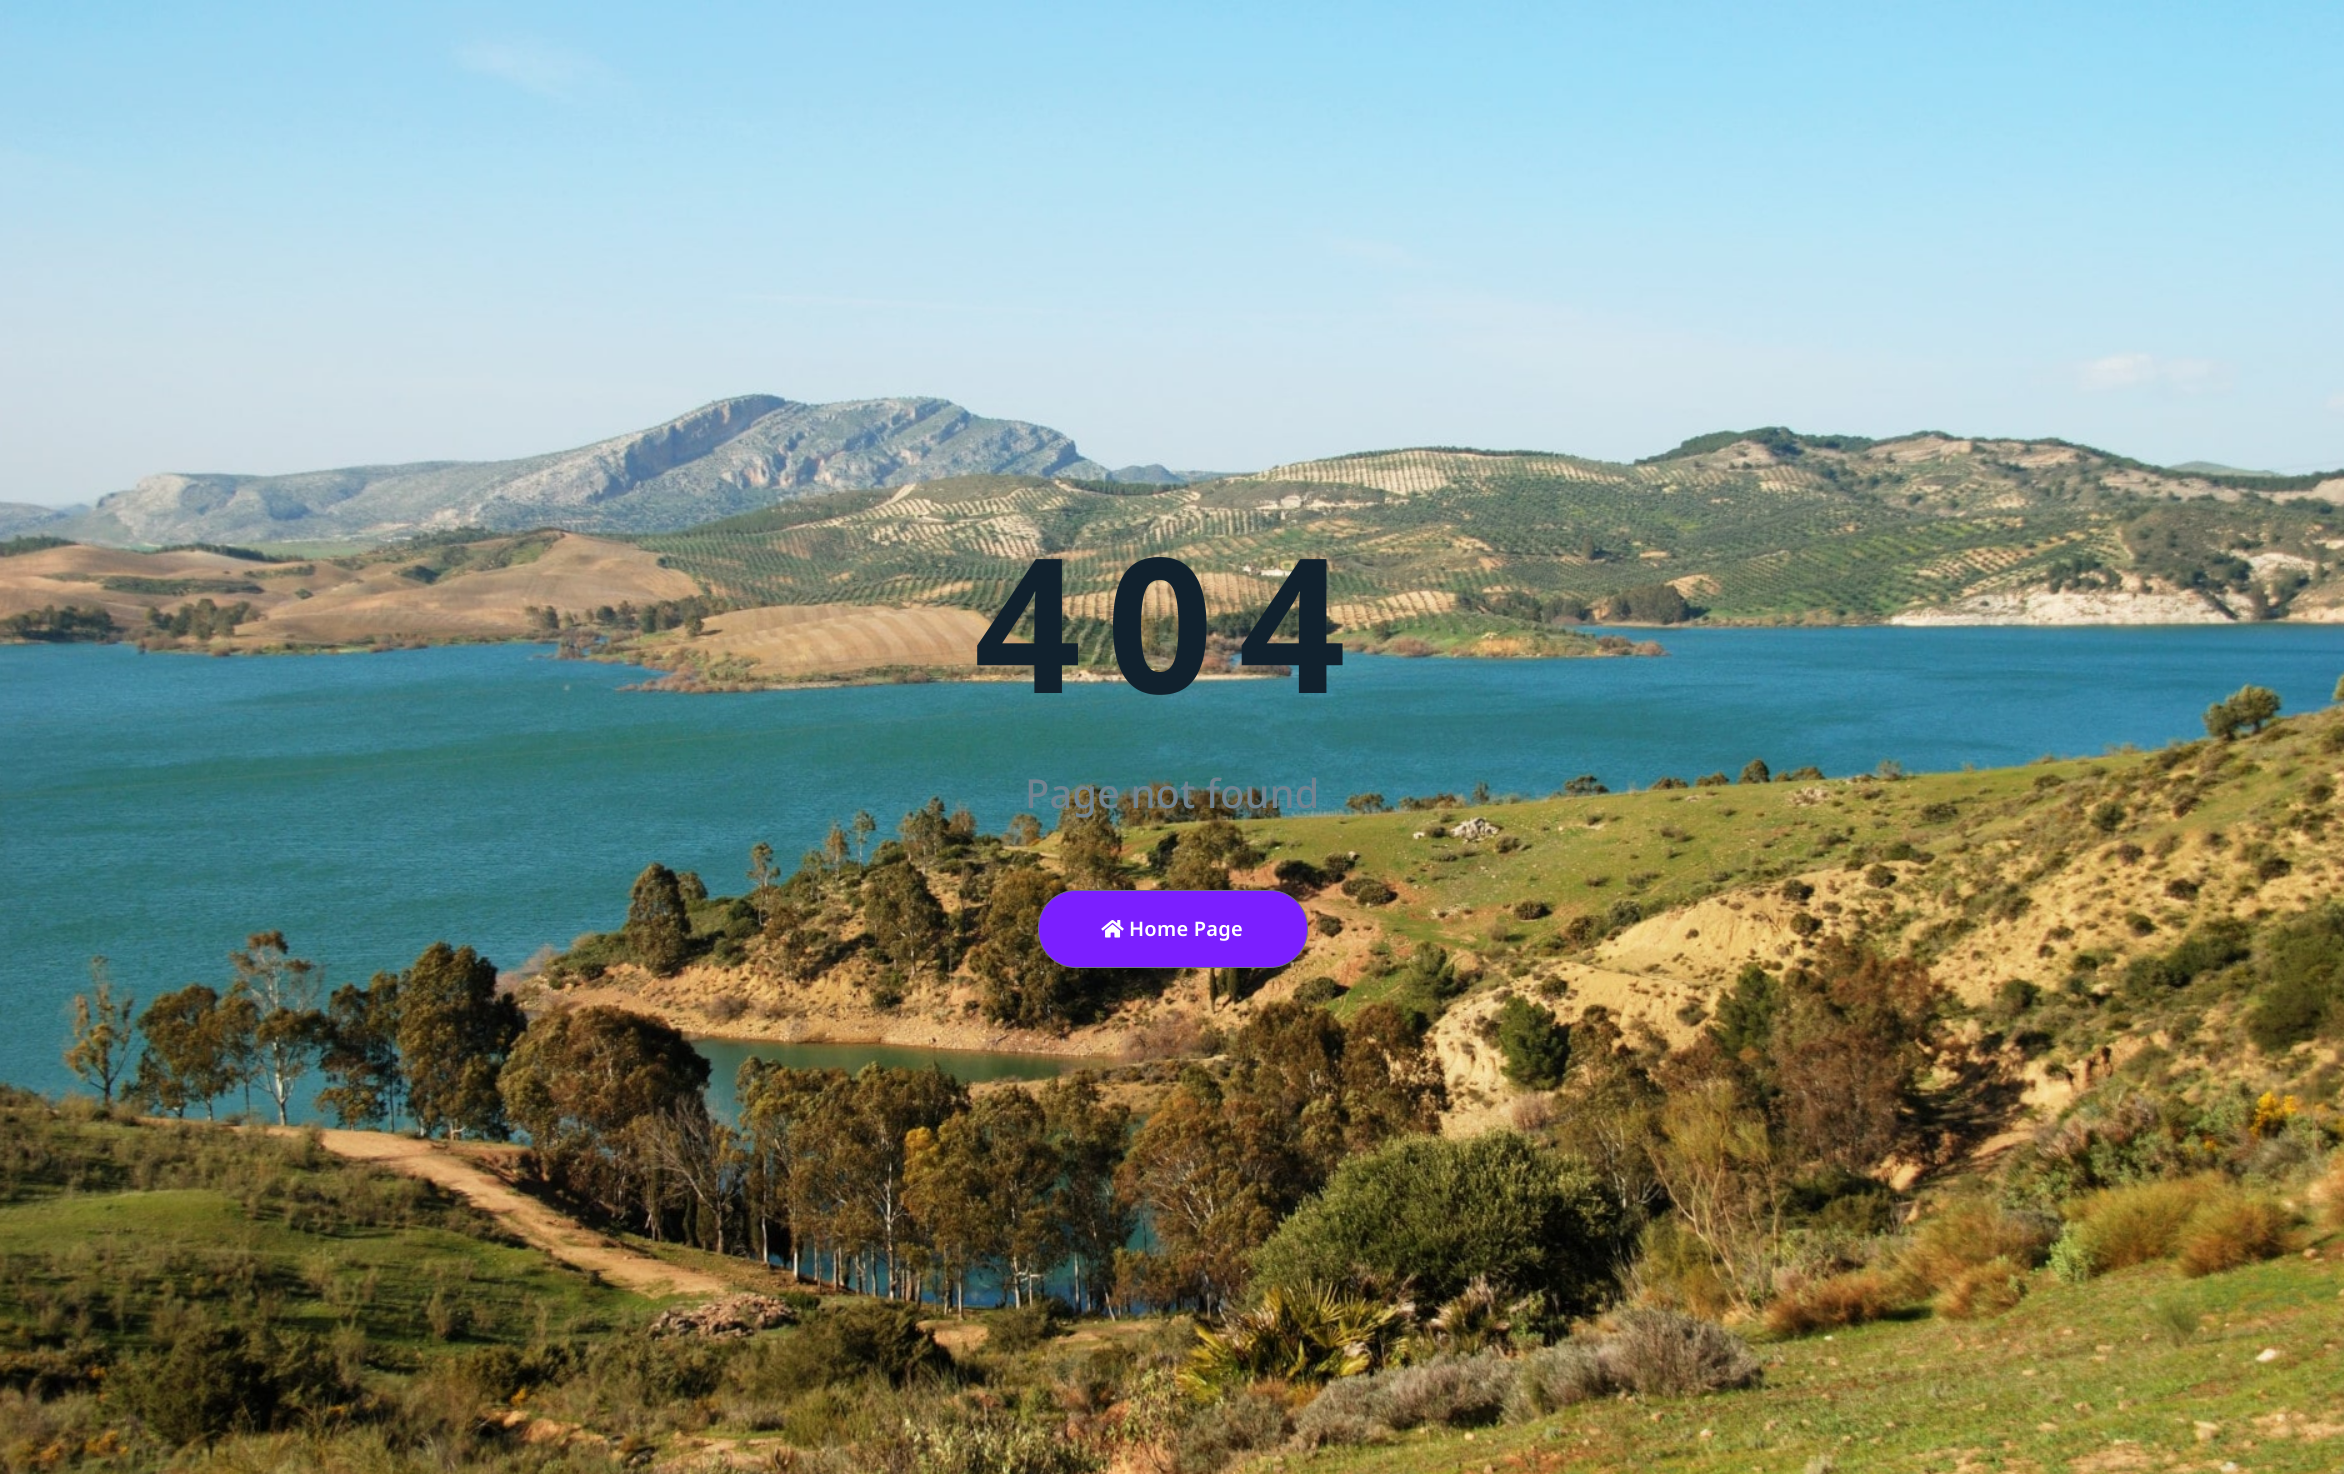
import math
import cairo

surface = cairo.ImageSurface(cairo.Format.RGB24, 2344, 1474)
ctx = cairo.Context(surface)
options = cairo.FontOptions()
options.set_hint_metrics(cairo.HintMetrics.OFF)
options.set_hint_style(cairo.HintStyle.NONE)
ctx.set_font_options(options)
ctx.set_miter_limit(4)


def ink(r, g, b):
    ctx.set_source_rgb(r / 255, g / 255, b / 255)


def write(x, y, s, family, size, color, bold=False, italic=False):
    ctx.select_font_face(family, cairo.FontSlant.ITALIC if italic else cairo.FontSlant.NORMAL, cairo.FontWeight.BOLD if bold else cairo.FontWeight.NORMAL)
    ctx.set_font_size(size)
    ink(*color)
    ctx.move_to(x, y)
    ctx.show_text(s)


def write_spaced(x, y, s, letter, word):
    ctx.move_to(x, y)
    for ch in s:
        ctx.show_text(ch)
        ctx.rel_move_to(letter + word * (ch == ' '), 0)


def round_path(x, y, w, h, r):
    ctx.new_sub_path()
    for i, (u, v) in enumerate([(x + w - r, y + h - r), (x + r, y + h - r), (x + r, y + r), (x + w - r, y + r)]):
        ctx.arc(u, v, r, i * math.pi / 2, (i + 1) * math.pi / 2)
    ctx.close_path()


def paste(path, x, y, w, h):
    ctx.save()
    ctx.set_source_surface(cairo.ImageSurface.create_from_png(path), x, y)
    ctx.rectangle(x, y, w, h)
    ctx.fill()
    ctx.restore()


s1 = dict(family="Noto Sans Medium", size=40, color=(113, 131, 144))

ink(255, 255, 255)
ctx.paint()
paste("pic1.png", 0, 0, 2344, 1474)
ctx.select_font_face("Noto Sans", cairo.FontSlant.NORMAL, cairo.FontWeight.BOLD)
ctx.set_font_size(187.5)
ink(17, 33, 45)
write_spaced(974, 693, "404", 25, 0)
write(1025, 808, "Page not found", **s1)
ink(123, 31, 255)
round_path(1038.5, 890.5, 269, 77, 37.5)
ctx.fill_preserve()
ink(108, 117, 125)
ctx.set_line_width(1)
ctx.stroke()
paste("pic2.png", 1101, 920, 23, 18)
ctx.select_font_face("Noto Sans SemiBold")
ctx.set_font_size(20)
ink(255, 255, 255)
write_spaced(1129, 936, "Home Page", 0.25, 0)
surface.write_to_png("screenshot.png")
